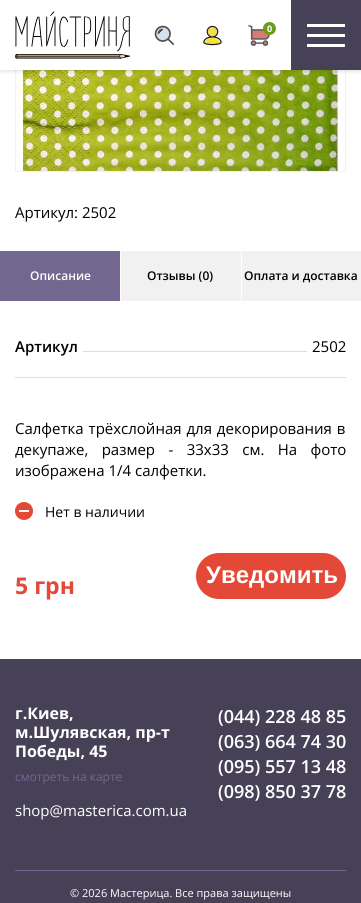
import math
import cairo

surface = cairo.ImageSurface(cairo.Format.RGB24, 361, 903)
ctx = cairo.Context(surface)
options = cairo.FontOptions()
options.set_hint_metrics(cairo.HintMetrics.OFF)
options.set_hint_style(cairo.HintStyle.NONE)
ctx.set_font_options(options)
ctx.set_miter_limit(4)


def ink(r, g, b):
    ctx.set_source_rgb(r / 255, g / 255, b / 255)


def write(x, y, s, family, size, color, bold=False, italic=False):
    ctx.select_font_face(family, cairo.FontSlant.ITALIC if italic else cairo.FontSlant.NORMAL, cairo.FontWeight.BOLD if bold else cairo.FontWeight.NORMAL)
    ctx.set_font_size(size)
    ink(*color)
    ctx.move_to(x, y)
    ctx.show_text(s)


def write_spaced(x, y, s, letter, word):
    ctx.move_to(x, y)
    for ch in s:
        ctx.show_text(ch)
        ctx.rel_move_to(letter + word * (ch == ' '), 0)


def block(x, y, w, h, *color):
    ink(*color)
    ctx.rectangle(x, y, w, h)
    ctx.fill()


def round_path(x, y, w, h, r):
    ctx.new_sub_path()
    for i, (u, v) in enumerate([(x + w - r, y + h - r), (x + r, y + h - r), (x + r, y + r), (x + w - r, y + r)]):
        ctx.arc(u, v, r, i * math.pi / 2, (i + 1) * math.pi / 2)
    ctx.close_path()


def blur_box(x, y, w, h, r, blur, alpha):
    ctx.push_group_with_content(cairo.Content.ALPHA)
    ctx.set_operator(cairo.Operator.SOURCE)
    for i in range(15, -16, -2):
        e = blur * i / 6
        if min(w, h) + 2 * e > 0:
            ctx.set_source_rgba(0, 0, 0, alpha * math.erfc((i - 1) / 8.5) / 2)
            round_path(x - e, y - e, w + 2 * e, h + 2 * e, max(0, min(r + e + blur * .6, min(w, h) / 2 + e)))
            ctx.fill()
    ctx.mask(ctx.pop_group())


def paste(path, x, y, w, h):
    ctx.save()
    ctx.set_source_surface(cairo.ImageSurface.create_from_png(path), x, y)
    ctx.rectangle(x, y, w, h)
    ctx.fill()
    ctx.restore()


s1 = dict(family="Open Sans", size=9, color=(255, 255, 255), bold=True)
s2 = dict(family="Open Sans", size=15, color=(0, 0, 0))
s3 = dict(family="Open Sans SemiBold", size=12, color=(255, 255, 255))
s4 = dict(family="Open Sans SemiBold", size=12, color=(0, 0, 0))
s5 = dict(family="Open Sans SemiBold", size=15, color=(0, 0, 0))
s6 = dict(family="Open Sans", size=14, color=(0, 0, 0))
s7 = dict(family="Open Sans", size=23, color=(228, 73, 55), bold=True)
s8 = dict(family="Liberation Sans", size=24, color=(255, 255, 255), bold=True)
s9 = dict(family="Open Sans", size=16, color=(255, 255, 255), bold=True)
s10 = dict(family="Open Sans", size=12, color=(114, 103, 143))
s11 = dict(family="Open Sans", size=15, color=(255, 255, 255))
s12 = dict(family="Open Sans SemiBold", size=18, color=(255, 255, 255))
s13 = dict(family="Open Sans", size=11, color=(255, 255, 255))

ink(255, 255, 255)
ctx.paint()
ctx.rectangle(15.5, -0.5, 330, 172)
ink(241, 241, 241)
ctx.set_line_width(1)
ctx.stroke()
paste("pic5.png", 16, 70, 329, 101)
ink(0, 0, 0)
blur_box(0, 0, 361, 70, 0, 2.5, 0.19)
block(0, 0, 291, 70, 255, 255, 255)
paste("pic1.png", 15, 11, 115, 48)
paste("pic2.png", 154, 25, 21, 21)
paste("pic3.png", 203, 25, 19, 21)
paste("pic4.png", 248, 25, 22, 21)
ink(108, 157, 21)
ctx.arc(269.5, 28.5, 6.5, 0, 2 * math.pi)
ctx.fill()
write(267, 32, "0", **s1)
block(291, 0, 70, 70, 71, 65, 87)
block(307, 34, 38, 3, 255, 255, 255)
block(307, 24, 38, 3, 255, 255, 255)
block(307, 44, 38, 3, 255, 255, 255)
write(15, 218, "Артикул: 2502", **s2)
block(0, 251, 120, 50, 114, 103, 143)
write(30, 280, "Описание", **s3)
block(121, 251, 120, 50, 241, 241, 241)
write(147, 280, "Отзывы (0)", **s4)
block(242, 251, 119, 50, 241, 241, 241)
write(244, 280, "Оплата и доставка", **s4)
write(15, 352, "Артикул", **s5)
block(83, 351, 224, 1, 221, 221, 221)
write(312, 352, "2502", **s2)
block(15, 377, 331, 1, 221, 221, 221)
ink(0, 0, 0)
write_spaced(15, 434, "Салфетка трёхслойная для декорирования в", 0, 1)
write_spaced(15, 455, "декупаже, размер - 33х33 см. На фото", 0, 9.5)
write(15, 476, "изображена 1/4 салфетки.", **s2)
ink(228, 73, 55)
ctx.new_path()
ctx.arc(24, 511, 9, 0, 2 * math.pi)
ctx.fill()
write(45, 517, "Нет в наличии", **s6)
block(19, 510, 10, 2, 255, 255, 255)
write(15, 594, "5 грн", **s7)
round_path(196, 553, 150, 46, 23)
ctx.fill()
write(206, 583, "Уведомить", **s8)
block(0, 659, 361, 244, 71, 65, 87)
write(15, 719, "г.Киев,", **s9)
write(15, 738, "м.Шулявская, пр-т", **s9)
write(15, 757, "Победы, 45", **s9)
write(15, 781, "смотреть на карте", **s10)
write(15, 816, "shop@masterica.com.ua", **s11)
write(218, 723, "(044) 228 48 85", **s12)
write(218, 748, "(063) 664 74 30", **s12)
write(218, 773, "(095) 557 13 48", **s12)
write(218, 798, "(098) 850 37 78", **s12)
block(15, 870, 331, 1, 114, 103, 143)
write(70, 897, "© 2026 Мастерица. Все права защищены", **s13)
surface.write_to_png("screenshot.png")
